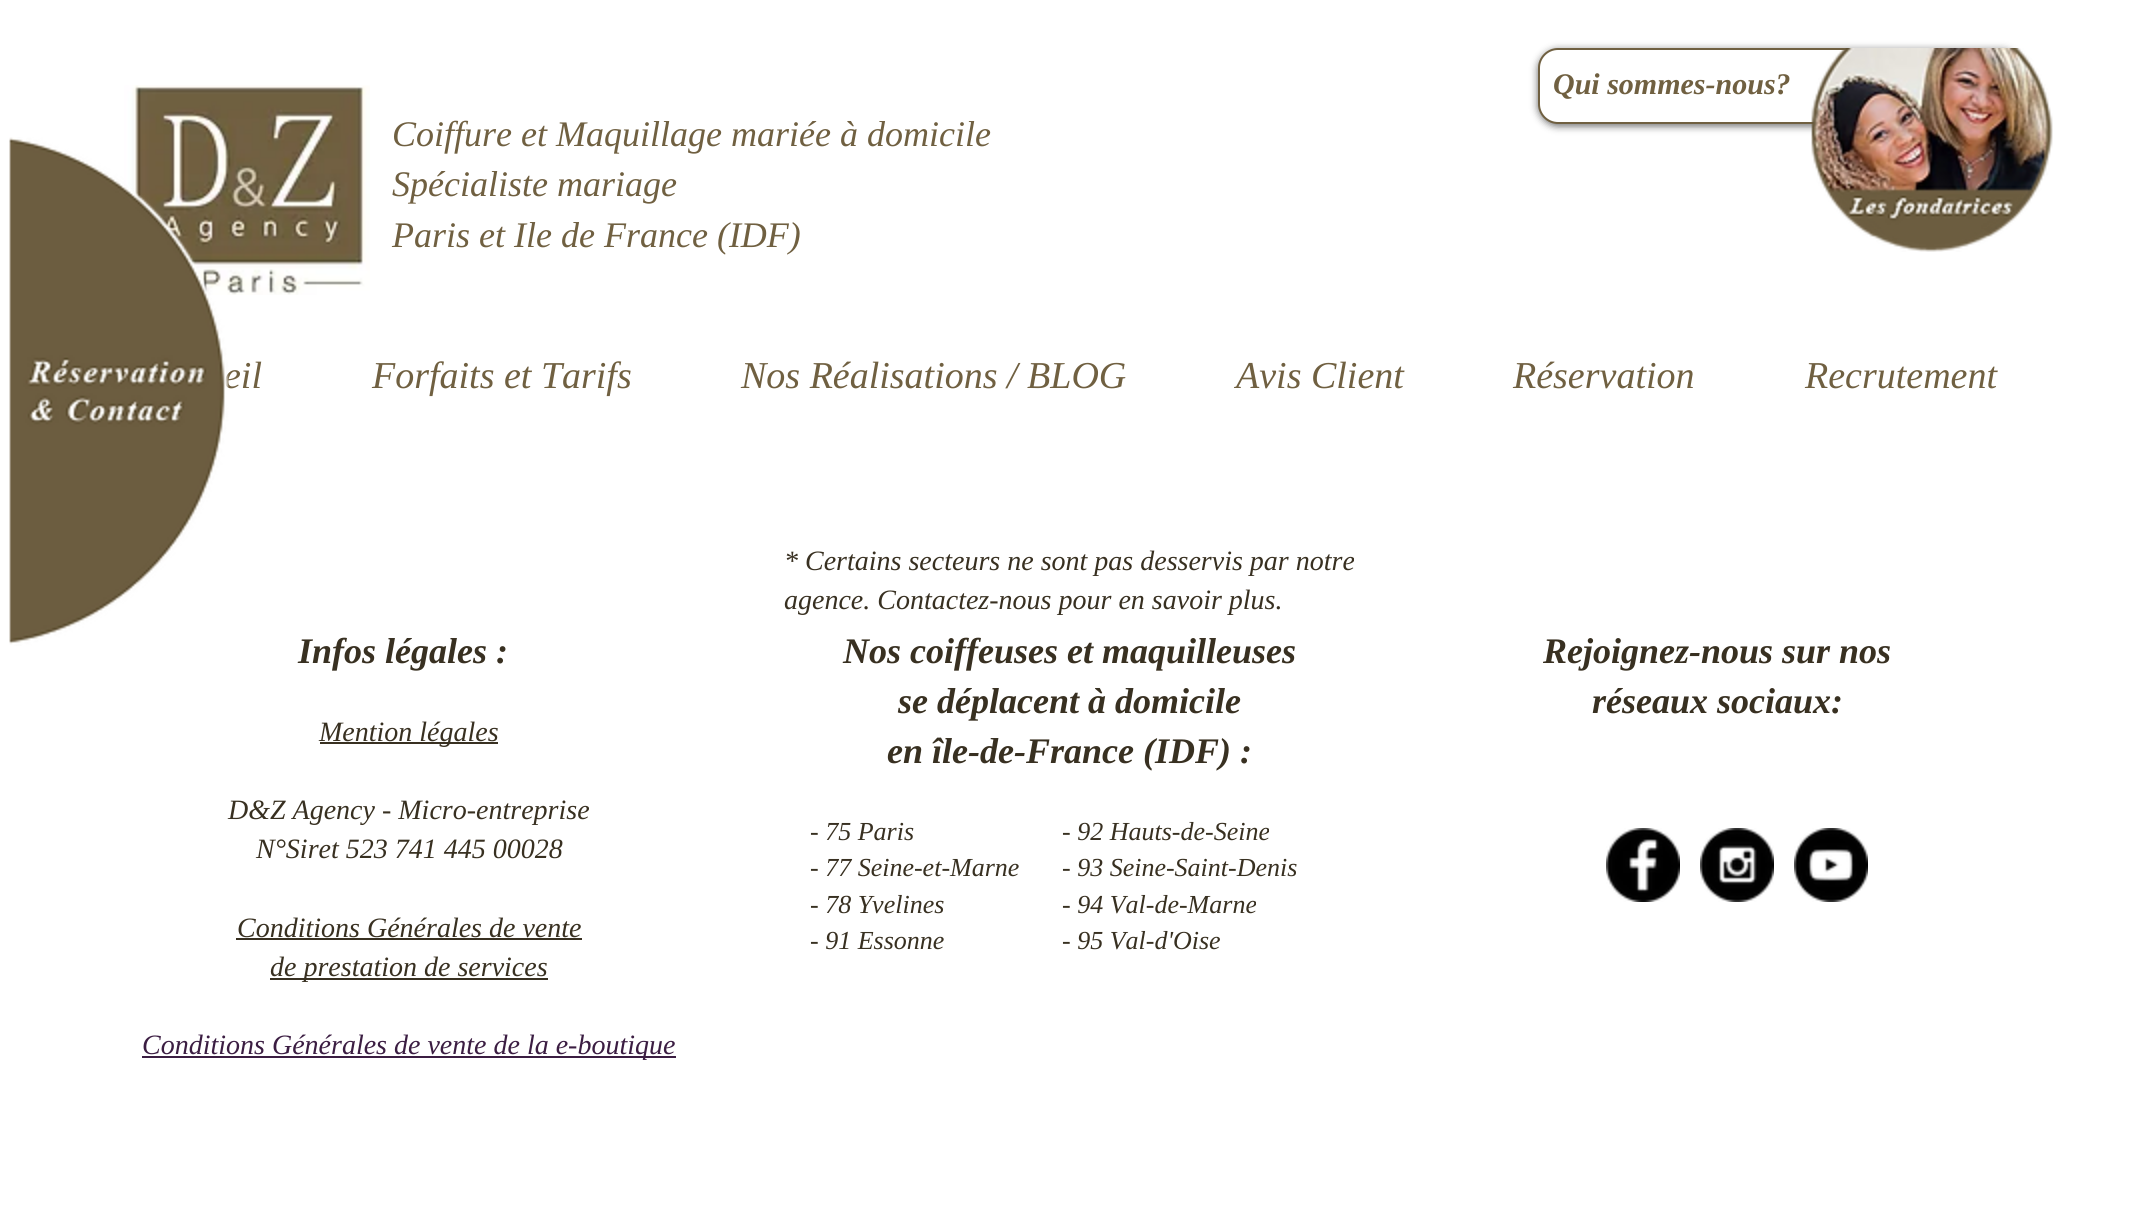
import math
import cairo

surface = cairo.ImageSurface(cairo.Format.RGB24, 2143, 1230)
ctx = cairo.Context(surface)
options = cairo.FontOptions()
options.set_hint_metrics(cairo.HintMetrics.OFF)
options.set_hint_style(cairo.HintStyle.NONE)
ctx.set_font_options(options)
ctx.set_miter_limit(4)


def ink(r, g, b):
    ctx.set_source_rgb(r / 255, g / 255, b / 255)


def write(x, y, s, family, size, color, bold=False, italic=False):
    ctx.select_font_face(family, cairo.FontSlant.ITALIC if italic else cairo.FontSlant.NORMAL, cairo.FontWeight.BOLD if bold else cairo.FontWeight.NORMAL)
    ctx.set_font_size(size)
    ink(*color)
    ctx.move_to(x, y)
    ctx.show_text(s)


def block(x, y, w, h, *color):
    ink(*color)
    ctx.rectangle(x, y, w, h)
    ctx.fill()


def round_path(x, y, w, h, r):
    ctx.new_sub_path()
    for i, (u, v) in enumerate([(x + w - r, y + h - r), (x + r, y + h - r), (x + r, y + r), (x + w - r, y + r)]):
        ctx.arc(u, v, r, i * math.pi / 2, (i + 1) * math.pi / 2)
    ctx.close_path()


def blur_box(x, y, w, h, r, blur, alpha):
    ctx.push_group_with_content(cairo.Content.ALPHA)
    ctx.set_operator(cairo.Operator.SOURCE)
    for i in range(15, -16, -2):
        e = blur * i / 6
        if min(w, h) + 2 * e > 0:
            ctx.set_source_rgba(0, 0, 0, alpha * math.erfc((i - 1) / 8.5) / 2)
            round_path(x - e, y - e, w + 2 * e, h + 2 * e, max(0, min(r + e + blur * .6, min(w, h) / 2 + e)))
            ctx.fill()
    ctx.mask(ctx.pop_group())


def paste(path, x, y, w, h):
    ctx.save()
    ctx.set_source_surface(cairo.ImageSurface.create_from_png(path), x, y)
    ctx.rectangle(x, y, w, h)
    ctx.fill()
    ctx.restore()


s1 = dict(family="Liberation Serif", size=38, color=(112, 96, 65), italic=True)
s2 = dict(family="Liberation Serif", size=30, color=(112, 96, 65), bold=True, italic=True)
s3 = dict(family="Liberation Serif", size=36, color=(112, 96, 65), italic=True)
s4 = dict(family="Liberation Serif", size=28, color=(56, 48, 33), italic=True)
s5 = dict(family="Liberation Serif", size=36, color=(56, 48, 33), bold=True, italic=True)
s6 = dict(family="Liberation Serif", size=28, color=(59, 29, 66), italic=True)
s7 = dict(family="Liberation Serif", size=26, color=(56, 48, 33), italic=True)

ink(255, 255, 255)
ctx.paint()
paste("pic3.png", 124, 85, 246, 210)
write(224, 388, "eil", **s1)
paste("pic1.png", 9, 137, 220, 509)
ink(0, 0, 0)
blur_box(1538, 50, 484, 76, 20, 4, 0.6)
ink(255, 255, 255)
round_path(1539, 49, 482, 74, 19)
ctx.fill_preserve()
ink(112, 96, 65)
ctx.stroke()
write(1553, 94, "Qui sommes-nous?", **s2)
paste("pic2.png", 1811, 48, 242, 204)
write(392, 146, "Coiffure et Maquillage mariée à domicile", **s3)
write(392, 196, "Spécialiste mariage", **s3)
write(392, 247, "Paris et Ile de France (IDF)", **s3)
write(372, 388, "Forfaits et Tarifs", **s1)
write(741, 388, "Nos Réalisations / BLOG", **s1)
write(1236, 388, "Avis Client", **s1)
write(1513, 388, "Réservation", **s1)
write(1805, 388, "Recrutement", **s1)
write(784, 570, "* Certains secteurs ne sont pas desservis par notre", **s4)
write(784, 609, "agence. Contactez-nous pour en savoir plus.", **s4)
write(298, 663, "Infos légales :", **s5)
block(320, 742, 178, 2, 56, 48, 33)
write(319, 741, "Mention légales", **s4)
write(228, 819, "D&Z Agency - Micro-entreprise", **s4)
write(256, 858, "N°Siret 523 741 445 00028", **s4)
write(237, 937, "Conditions Générales de vente", **s4)
block(236, 938, 346, 2, 56, 48, 33)
block(270, 978, 278, 2, 56, 48, 33)
write(270, 976, "de prestation de services", **s4)
block(142, 1056, 534, 2, 59, 29, 66)
write(142, 1054, "Conditions Générales de vente de la e-boutique", **s6)
write(843, 663, "Nos coiffeuses et maquilleuses", **s5)
write(898, 713, "se déplacent à domicile", **s5)
write(887, 763, "en île-de-France (IDF) :", **s5)
write(810, 840, "- 75 Paris", **s7)
write(810, 876, "- 77 Seine-et-Marne", **s7)
write(810, 913, "- 78 Yvelines", **s7)
write(810, 949, "- 91 Essonne", **s7)
write(1062, 840, "- 92 Hauts-de-Seine", **s7)
write(1062, 876, "- 93 Seine-Saint-Denis", **s7)
write(1062, 913, "- 94 Val-de-Marne", **s7)
write(1062, 949, "- 95 Val-d'Oise", **s7)
write(1543, 663, "Rejoignez-nous sur nos", **s5)
write(1592, 713, "réseaux sociaux:", **s5)
paste("pic4.png", 1606, 828, 74, 74)
paste("pic5.png", 1700, 828, 74, 74)
paste("pic6.png", 1794, 828, 74, 74)
surface.write_to_png("screenshot.png")
